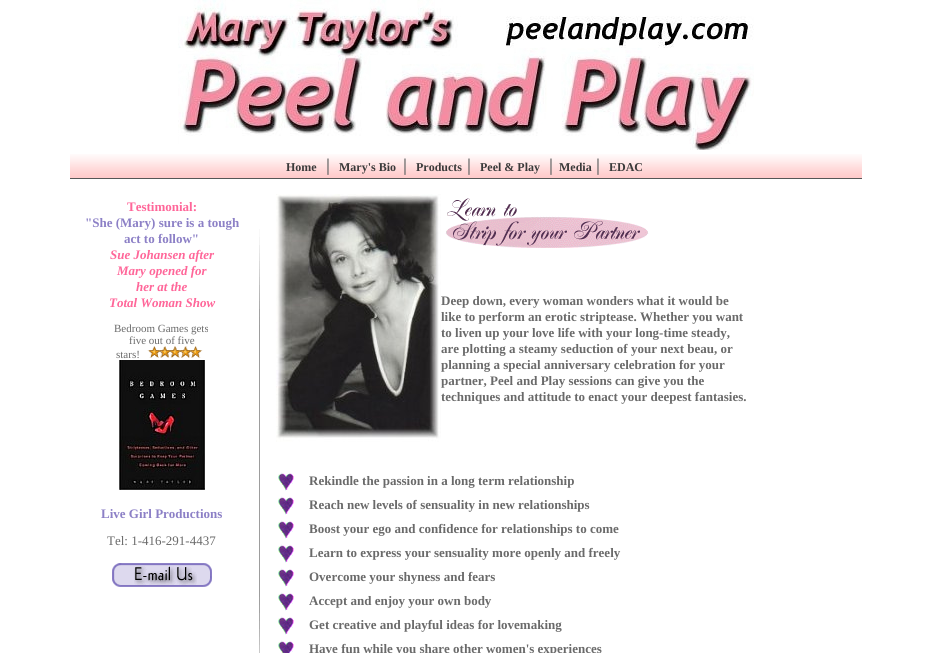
import math
import cairo

surface = cairo.ImageSurface(cairo.Format.RGB24, 932, 653)
ctx = cairo.Context(surface)
options = cairo.FontOptions()
options.set_hint_metrics(cairo.HintMetrics.OFF)
options.set_hint_style(cairo.HintStyle.NONE)
ctx.set_font_options(options)
ctx.set_miter_limit(4)


def ink(r, g, b):
    ctx.set_source_rgb(r / 255, g / 255, b / 255)


def write(x, y, s, family, size, color, bold=False, italic=False):
    ctx.select_font_face(family, cairo.FontSlant.ITALIC if italic else cairo.FontSlant.NORMAL, cairo.FontWeight.BOLD if bold else cairo.FontWeight.NORMAL)
    ctx.set_font_size(size)
    ink(*color)
    ctx.move_to(x, y)
    ctx.show_text(s)


def paste(path, x, y, w, h):
    ctx.save()
    ctx.set_source_surface(cairo.ImageSurface.create_from_png(path), x, y)
    ctx.rectangle(x, y, w, h)
    ctx.fill()
    ctx.restore()


s1 = dict(family="Liberation Serif", size=12, color=(58, 58, 58), bold=True)
s2 = dict(family="Liberation Serif", size=18, color=(106, 106, 106), bold=True)
s3 = dict(family="Liberation Serif", size=13, color=(255, 102, 153), bold=True)
s4 = dict(family="Liberation Serif", size=13, color=(140, 128, 198), bold=True)
s5 = dict(family="Liberation Serif", size=13, color=(255, 102, 153), bold=True, italic=True)
s6 = dict(family="Liberation Serif", size=11, color=(106, 106, 106))
s7 = dict(family="Liberation Serif", size=13, color=(106, 106, 106))
s8 = dict(family="Liberation Serif", size=13, color=(106, 106, 106), bold=True)

ink(255, 255, 255)
ctx.paint()
paste("pic1.png", 178, 0, 576, 150)
paste("pic2.png", 70, 154, 790, 25)
write(286, 171, "Home", **s1)
write(326, 171, "|", **s2)
write(339, 171, "Mary's Bio", **s1)
write(403, 171, "|", **s2)
write(416, 171, "Products", **s1)
write(467, 171, "|", **s2)
write(480, 171, "Peel & Play", **s1)
write(549, 171, "|", **s2)
write(559, 171, "Media", **s1)
write(596, 171, "|", **s2)
write(609, 171, "EDAC", **s1)
paste("pic3.png", 860, 154, 2, 25)
write(127, 211, "Testimonial:", **s3)
write(85, 227, "\"She (Mary) sure is a tough", **s4)
write(124, 243, "act to follow\"", **s4)
write(110, 259, "Sue Johansen after", **s5)
write(117, 275, "Mary opened for", **s5)
write(136, 291, "her at the", **s5)
write(109, 307, "Total Woman Show", **s5)
write(114, 332, "Bedroom Games gets", **s6)
write(129, 344, "five out of five", **s6)
write(116, 358, "stars!", **s6)
paste("pic4.png", 147, 346, 56, 12)
paste("pic5.png", 119, 360, 86, 130)
write(101, 518, "Live Girl Productions", **s4)
write(107, 545, "Tel: 1-416-291-4437", **s7)
paste("pic6.png", 112, 563, 100, 24)
paste("pic7.png", 259, 229, 1, 424)
paste("pic8.png", 276, 194, 165, 248)
paste("pic9.png", 445, 198, 204, 50)
write(441, 305, "Deep down, every woman wonders what it would be", **s8)
write(441, 321, "like to perform an erotic striptease. Whether you want", **s8)
write(441, 337, "to liven up your love life with your long-time steady,", **s8)
write(441, 353, "are plotting a steamy seduction of your next beau, or", **s8)
write(441, 369, "planning a special anniversary celebration for your", **s8)
write(441, 385, "partner, Peel and Play sessions can give you the", **s8)
write(441, 401, "techniques and attitude to enact your deepest fantasies.", **s8)
paste("pic10.png", 278, 472, 16, 19)
write(309, 485, "Rekindle the passion in a long term relationship", **s8)
paste("pic10.png", 278, 496, 16, 19)
write(309, 509, "Reach new levels of sensuality in new relationships", **s8)
paste("pic10.png", 278, 520, 16, 19)
write(309, 533, "Boost your ego and confidence for relationships to come", **s8)
paste("pic10.png", 278, 544, 16, 19)
write(309, 557, "Learn to express your sensuality more openly and freely", **s8)
paste("pic10.png", 278, 568, 16, 19)
write(309, 581, "Overcome your shyness and fears", **s8)
paste("pic10.png", 278, 592, 16, 19)
write(309, 605, "Accept and enjoy your own body", **s8)
paste("pic10.png", 278, 616, 16, 19)
write(309, 629, "Get creative and playful ideas for lovemaking", **s8)
paste("pic11.png", 278, 640, 16, 13)
write(309, 653, "Have fun while you share other women's experiences", **s8)
surface.write_to_png("screenshot.png")
